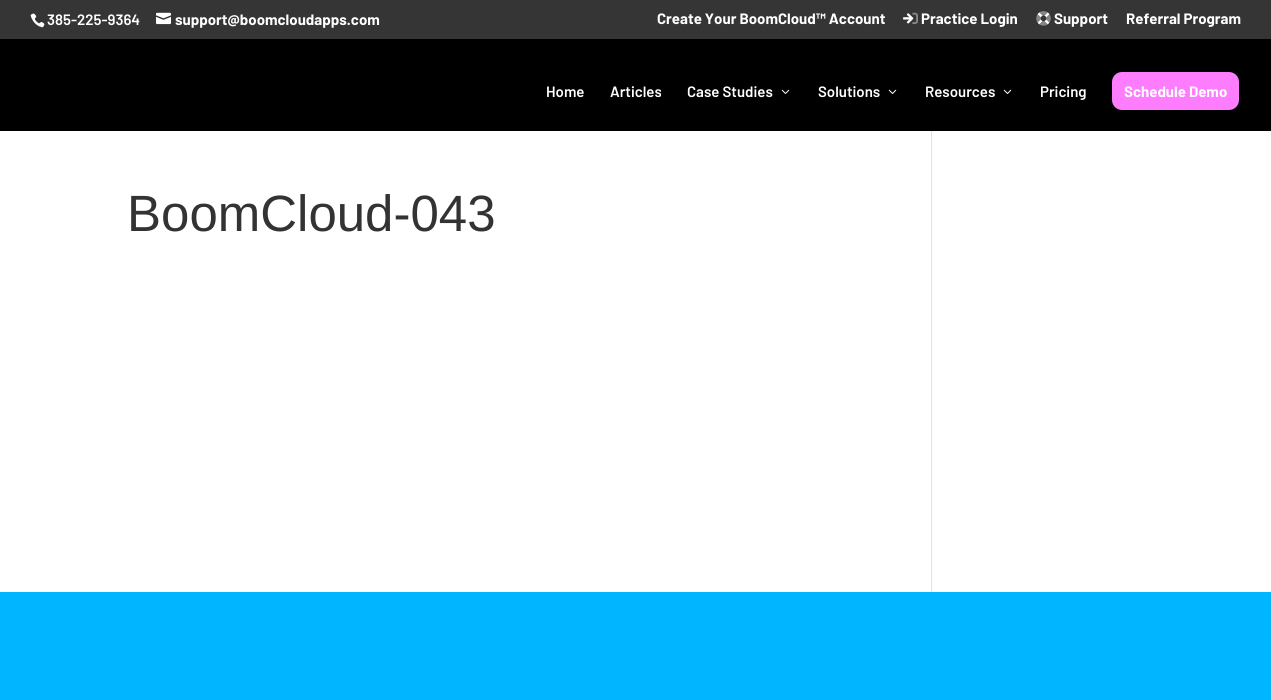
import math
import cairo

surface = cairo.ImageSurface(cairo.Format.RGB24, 1271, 700)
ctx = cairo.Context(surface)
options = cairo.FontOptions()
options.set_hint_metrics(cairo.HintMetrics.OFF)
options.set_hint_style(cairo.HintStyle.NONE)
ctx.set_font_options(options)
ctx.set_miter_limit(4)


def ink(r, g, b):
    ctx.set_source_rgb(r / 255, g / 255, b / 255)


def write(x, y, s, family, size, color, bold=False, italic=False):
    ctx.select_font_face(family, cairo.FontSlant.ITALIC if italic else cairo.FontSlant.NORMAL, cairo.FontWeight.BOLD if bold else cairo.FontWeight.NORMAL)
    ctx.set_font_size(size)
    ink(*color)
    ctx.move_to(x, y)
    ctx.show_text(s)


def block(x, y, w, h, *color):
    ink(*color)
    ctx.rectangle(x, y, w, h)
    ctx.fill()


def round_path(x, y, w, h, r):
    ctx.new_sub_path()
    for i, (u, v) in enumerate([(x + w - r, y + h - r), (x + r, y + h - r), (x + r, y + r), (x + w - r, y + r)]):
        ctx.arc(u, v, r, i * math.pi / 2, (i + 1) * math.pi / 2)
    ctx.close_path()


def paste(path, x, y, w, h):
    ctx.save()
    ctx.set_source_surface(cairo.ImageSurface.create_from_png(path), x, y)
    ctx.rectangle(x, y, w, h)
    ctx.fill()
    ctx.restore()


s1 = dict(family="Barlow SemiBold", size=15, color=(255, 255, 255))
s2 = dict(family="Barlow", size=15, color=(255, 255, 255), bold=True)
s3 = dict(family="Liberation Sans", size=51, color=(51, 51, 51))

ink(255, 255, 255)
ctx.paint()
block(0, 0, 1271, 39, 53, 53, 53)
paste("pic1.png", 30, 13, 15, 15)
write(47, 25, "385-225-9364", **s1)
paste("pic2.png", 156, 12, 15, 13)
write(175, 25, "support@boomcloudapps.com", **s2)
write(657, 24, "Create Your BoomCloud™ Account", **s2)
paste("pic3.png", 903, 13, 11, 11)
paste("pic4.png", 912, 12, 6, 12)
write(921, 24, "Practice Login", **s2)
paste("pic6.png", 1037, 12, 13, 13)
paste("pic5.png", 1036, 11, 15, 15)
write(1054, 24, "Support", **s2)
write(1126, 24, "Referral Program", **s2)
block(931, 130, 1, 462, 226, 226, 226)
block(0, 39, 1271, 92, 0, 0, 0)
write(546, 97, "Home", **s1)
write(610, 97, "Articles", **s1)
write(687, 97, "Case Studies", **s1)
paste("pic7.png", 781, 89, 9, 5)
write(818, 97, "Solutions", **s1)
paste("pic7.png", 888, 89, 9, 5)
write(925, 97, "Resources", **s1)
paste("pic7.png", 1003, 89, 9, 5)
write(1040, 97, "Pricing", **s1)
ink(254, 124, 254)
round_path(1113, 73, 125, 36, 9)
ctx.fill_preserve()
ctx.stroke()
write(1124, 97, "Schedule Demo", **s2)
write(127, 231, "BoomCloud-043", **s3)
block(0, 592, 1271, 108, 1, 181, 255)
surface.write_to_png("screenshot.png")
